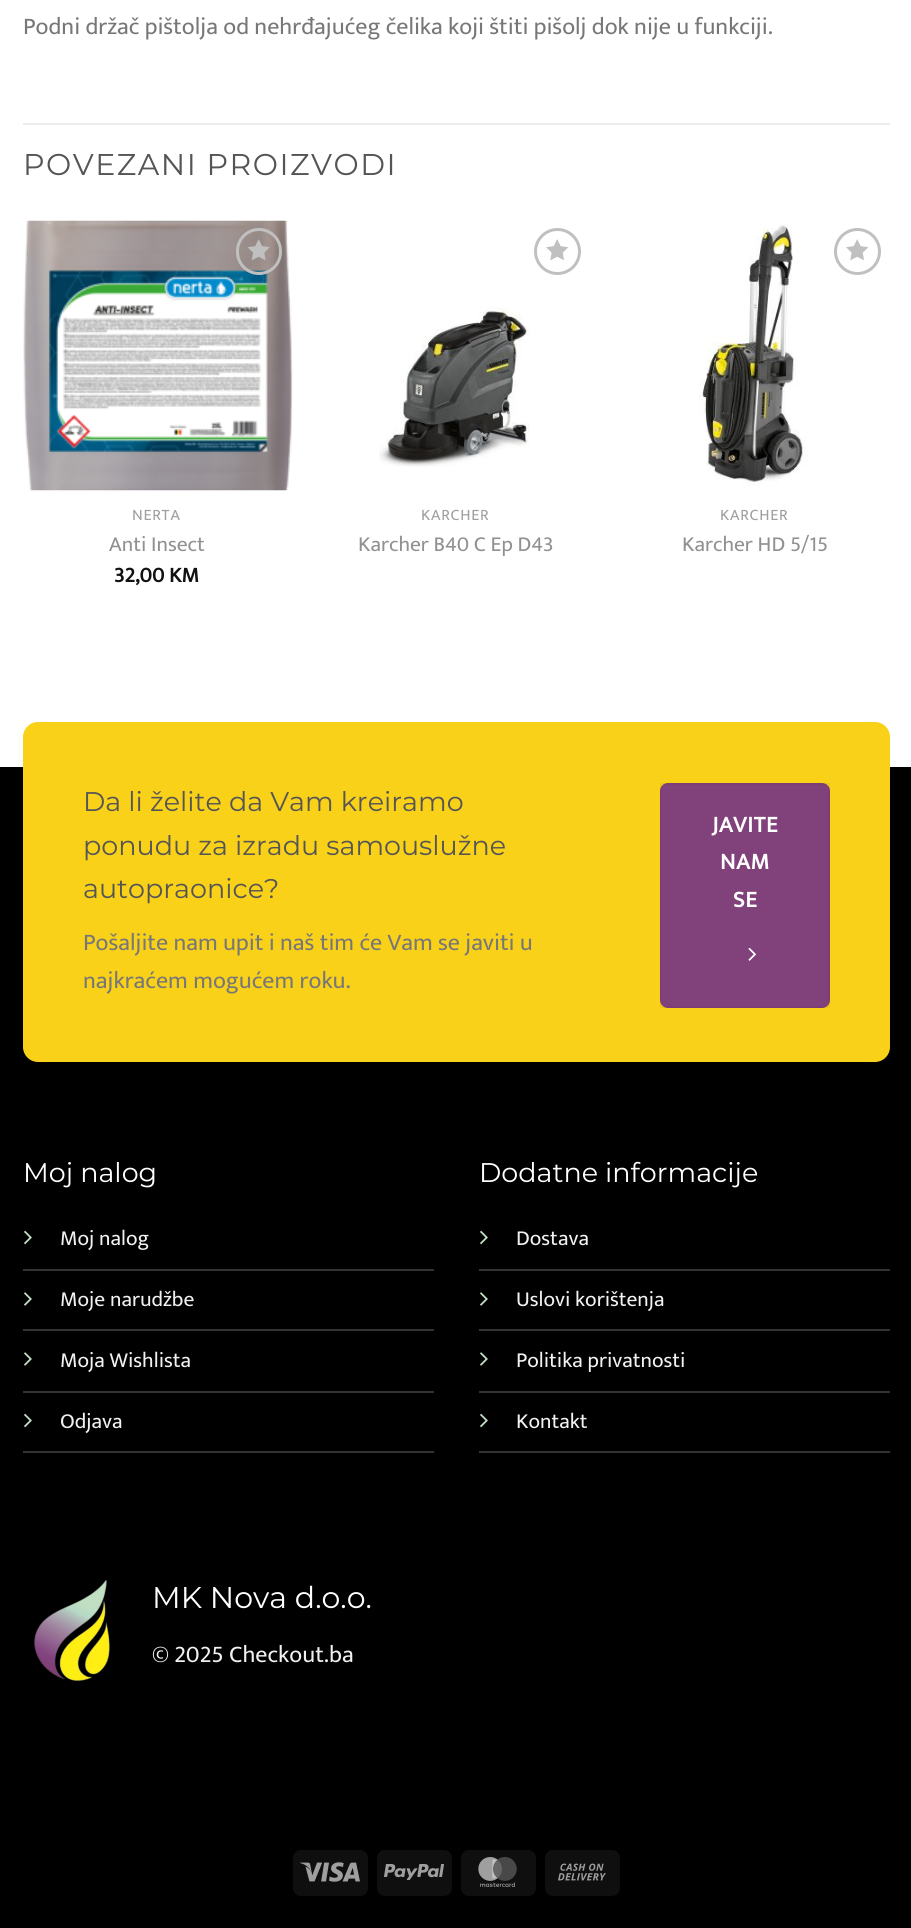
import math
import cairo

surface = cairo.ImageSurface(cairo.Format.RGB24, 911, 1928)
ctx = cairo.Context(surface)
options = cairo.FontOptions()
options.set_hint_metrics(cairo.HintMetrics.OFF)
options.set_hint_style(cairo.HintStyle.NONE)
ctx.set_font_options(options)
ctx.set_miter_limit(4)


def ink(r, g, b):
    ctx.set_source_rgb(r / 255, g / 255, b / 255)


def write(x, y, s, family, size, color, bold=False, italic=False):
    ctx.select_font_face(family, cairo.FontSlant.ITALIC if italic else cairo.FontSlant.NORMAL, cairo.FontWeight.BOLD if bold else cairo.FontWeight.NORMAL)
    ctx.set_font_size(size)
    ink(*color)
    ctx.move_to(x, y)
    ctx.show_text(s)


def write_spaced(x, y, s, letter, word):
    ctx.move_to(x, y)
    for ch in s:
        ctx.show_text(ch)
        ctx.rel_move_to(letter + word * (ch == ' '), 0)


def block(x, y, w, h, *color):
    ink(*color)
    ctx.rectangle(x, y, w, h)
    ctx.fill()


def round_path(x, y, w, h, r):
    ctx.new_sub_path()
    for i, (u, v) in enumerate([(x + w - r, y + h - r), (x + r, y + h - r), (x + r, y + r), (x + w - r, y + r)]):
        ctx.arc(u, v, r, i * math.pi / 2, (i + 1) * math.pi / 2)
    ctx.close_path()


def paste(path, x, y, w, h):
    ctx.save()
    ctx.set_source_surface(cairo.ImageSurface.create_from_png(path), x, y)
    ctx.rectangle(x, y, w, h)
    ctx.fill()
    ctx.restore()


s1 = dict(family="Mukta Vaani", size=24, color=(119, 119, 119))
s2 = dict(family="Mukta Vaani", size=21.5, color=(145, 145, 145))
s3 = dict(family="Mukta Vaani", size=21.5, color=(17, 17, 17), bold=True)
s4 = dict(family="Montserrat Thin", size=27, color=(85, 85, 85))
s5 = dict(family="Montserrat Thin", size=27, color=(255, 255, 255))
s6 = dict(family="Mukta Vaani", size=21.5, color=(241, 241, 241))
s7 = dict(family="Montserrat Thin", size=30, color=(255, 255, 255))
s8 = dict(family="Mukta Vaani", size=24, color=(241, 241, 241))

ink(255, 255, 255)
ctx.paint()
write(23, 34, "Podni držač pištolja od nehrđajućeg čelika koji štiti pišolj dok nije u funkciji.", **s1)
block(23, 123, 867, 2, 236, 236, 236)
ctx.select_font_face("Montserrat Thin")
ctx.set_font_size(30)
ink(85, 85, 85)
write_spaced(23, 175, "POVEZANI PROIZVODI", 1.5, 0)
paste("pic1.png", 23, 220, 270, 271)
round_path(237.5, 229.5, 43, 44, 21.5)
ink(192, 192, 192)
ctx.set_line_width(3)
ctx.stroke()
paste("pic2.png", 247, 239, 23, 22)
ctx.select_font_face("Mukta Vaani")
ctx.set_font_size(16)
ink(160, 160, 160)
write_spaced(132, 520, "NERTA", 0.75, 0)
write(109, 551, "Anti Insect", **s2)
write(114, 582, "32,00 KM", **s3)
ctx.new_path()
ctx.arc(557.5, 251.5, 22, 0, 2 * math.pi)
ink(192, 192, 192)
ctx.stroke()
paste("pic3.png", 546, 239, 23, 22)
paste("pic4.png", 379, 307, 151, 160)
ctx.select_font_face("Mukta Vaani")
ctx.set_font_size(16)
ink(160, 160, 160)
write_spaced(421, 520, "KARCHER", 0.75, 0)
write(358, 551, "Karcher B40 C Ep D43", **s2)
paste("pic5.png", 699, 224, 108, 262)
ctx.arc(857.5, 251.5, 22, 0, 2 * math.pi)
ink(192, 192, 192)
ctx.stroke()
paste("pic3.png", 846, 239, 23, 22)
ctx.set_font_size(16)
ink(160, 160, 160)
write_spaced(720, 520, "KARCHER", 0.75, 0)
write(682, 551, "Karcher HD 5/15", **s2)
block(0, 767, 911, 1161, 0, 0, 0)
ink(15, 15, 15)
round_path(293, 1850, 75, 46, 8)
ctx.fill()
paste("pic6.png", 300, 1862, 60, 20)
round_path(377, 1850, 75, 46, 8)
ctx.fill()
paste("pic7.png", 384, 1864, 60, 16)
round_path(461, 1850, 75, 46, 8)
ctx.fill()
paste("pic8.png", 478, 1857, 39, 30)
round_path(545, 1850, 75, 46, 8)
ctx.fill()
paste("pic9.png", 558, 1863, 48, 18)
ink(250, 209, 25)
round_path(23, 722, 867, 340, 15)
ctx.fill()
write(83, 811, "Da li želite da Vam kreiramo", **s4)
write(83, 855, "ponudu za izradu samouslužne", **s4)
write(83, 898, "autopraonice?", **s4)
write(83, 950, "Pošaljite nam upit i naš tim će Vam se javiti u", **s1)
write(83, 988, "najkraćem mogućem roku.", **s1)
ink(129, 66, 123)
round_path(660, 783, 170, 225, 8)
ctx.fill()
ctx.rectangle(661, 784, 168, 223)
ctx.set_source_rgba(0, 0, 0, 0.05)
ctx.set_line_width(2)
ctx.stroke()
ctx.select_font_face("Mukta Vaani", cairo.FontSlant.NORMAL, cairo.FontWeight.BOLD)
ctx.set_font_size(23)
ink(255, 255, 255)
write_spaced(712, 832, "JAVITE", 0.75, 0)
write_spaced(720, 869, "NAM", 0.75, 0)
write_spaced(733, 907, "SE", 0.75, 0)
paste("pic10.png", 748, 947, 8, 14)
write(23, 1182, "Moj nalog", **s5)
block(23, 1269, 411, 2, 51, 51, 51)
paste("pic11.png", 24, 1230, 8, 15)
write(60, 1245, "Moj nalog", **s6)
block(23, 1329, 411, 2, 51, 51, 51)
paste("pic12.png", 24, 1292, 8, 14)
write(60, 1306, "Moje narudžbe", **s6)
block(23, 1391, 411, 2, 51, 51, 51)
paste("pic12.png", 24, 1352, 8, 14)
write(60, 1367, "Moja Wishlista", **s6)
block(23, 1451, 411, 2, 51, 51, 51)
paste("pic11.png", 24, 1413, 8, 15)
write(60, 1428, "Odjava", **s6)
write(479, 1182, "Dodatne informacije", **s5)
block(479, 1269, 411, 2, 51, 51, 51)
paste("pic11.png", 480, 1230, 8, 15)
write(516, 1245, "Dostava", **s6)
block(479, 1329, 411, 2, 51, 51, 51)
paste("pic12.png", 480, 1292, 8, 14)
write(516, 1306, "Uslovi korištenja", **s6)
block(479, 1391, 411, 2, 51, 51, 51)
paste("pic12.png", 480, 1352, 8, 14)
write(516, 1367, "Politika privatnosti", **s6)
block(479, 1451, 411, 2, 51, 51, 51)
paste("pic11.png", 480, 1413, 8, 15)
write(516, 1428, "Kontakt", **s6)
paste("pic13.png", 34, 1580, 76, 101)
write(152, 1608, "MK Nova d.o.o.", **s7)
write(152, 1662, "© 2025 Checkout.ba", **s8)
surface.write_to_png("screenshot.png")
